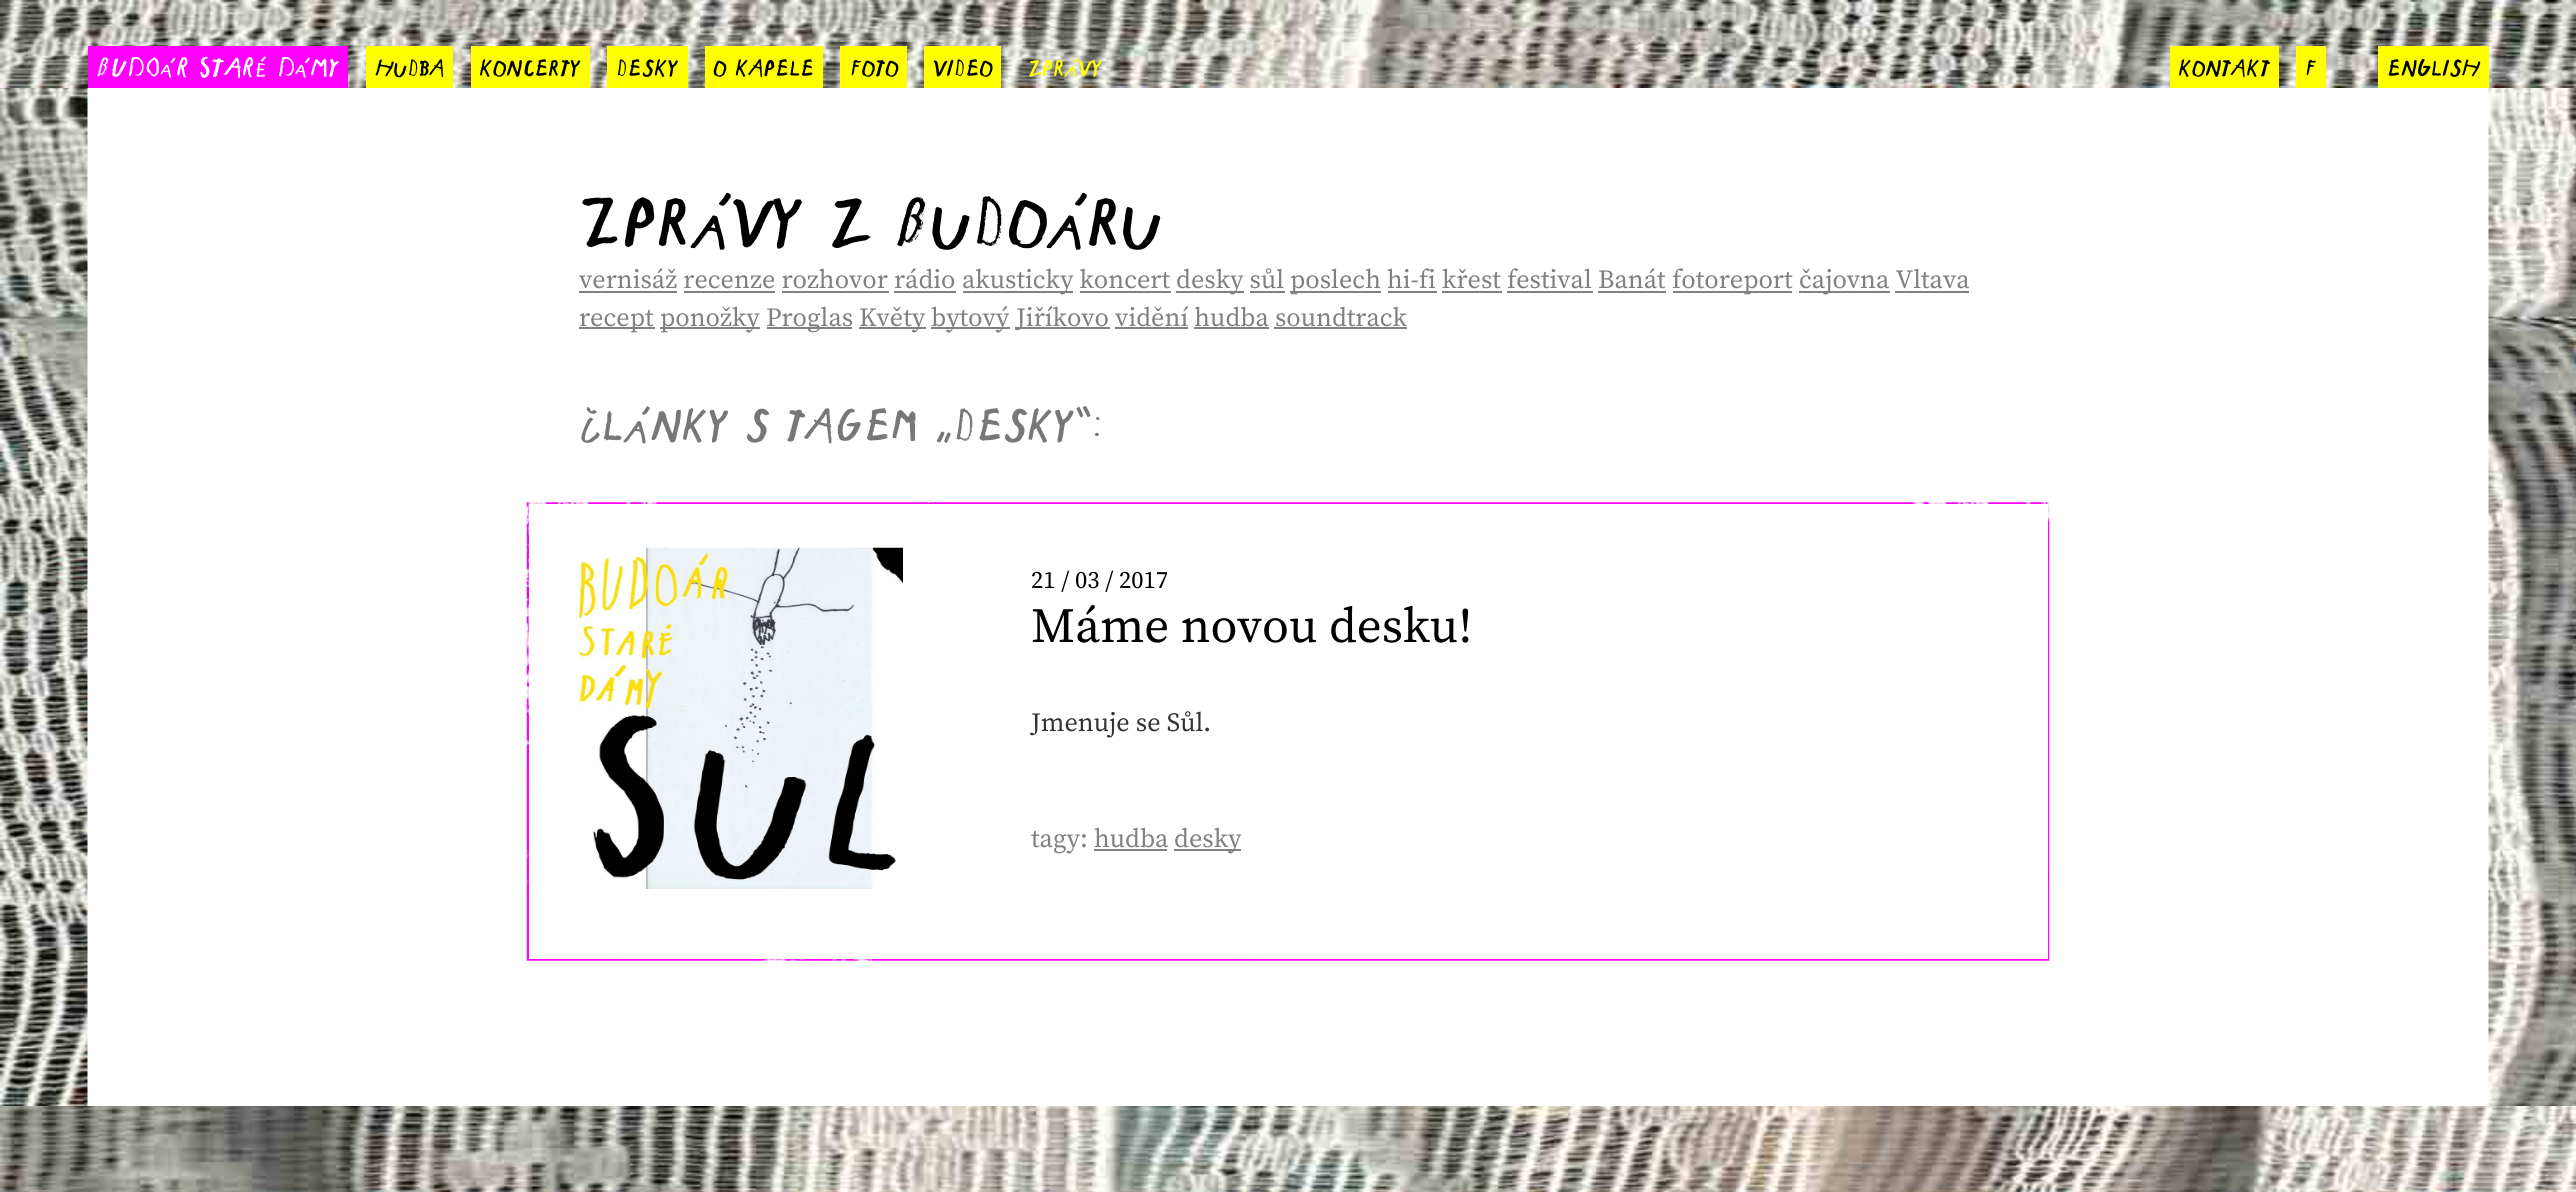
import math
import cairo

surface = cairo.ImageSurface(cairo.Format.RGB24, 2576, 1192)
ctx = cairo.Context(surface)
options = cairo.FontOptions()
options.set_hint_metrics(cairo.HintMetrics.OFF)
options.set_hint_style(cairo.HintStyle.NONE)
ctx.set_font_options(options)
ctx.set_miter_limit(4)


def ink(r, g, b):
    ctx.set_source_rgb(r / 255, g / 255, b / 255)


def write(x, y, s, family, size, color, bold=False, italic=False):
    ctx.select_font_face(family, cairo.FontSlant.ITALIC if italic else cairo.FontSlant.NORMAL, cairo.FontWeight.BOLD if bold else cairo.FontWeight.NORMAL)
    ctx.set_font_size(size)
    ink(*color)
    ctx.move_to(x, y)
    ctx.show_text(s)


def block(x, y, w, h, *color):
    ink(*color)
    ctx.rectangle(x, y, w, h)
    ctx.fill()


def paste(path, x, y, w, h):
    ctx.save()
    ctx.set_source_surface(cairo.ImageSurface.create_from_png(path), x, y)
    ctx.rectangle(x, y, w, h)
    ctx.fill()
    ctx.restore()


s1 = dict(family="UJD", size=24.5, color=(255, 255, 255))
s2 = dict(family="UJD", size=21, color=(0, 0, 0))
s3 = dict(family="UJD", size=21, color=(255, 255, 0))
s4 = dict(family="UJD", size=63, color=(0, 0, 0))
s5 = dict(family="Source Serif Pro", size=26.25, color=(128, 128, 128))
s6 = dict(family="UJD", size=41, color=(119, 119, 119))
s7 = dict(family="Source Serif Pro", size=24.5, color=(0, 0, 0))
s8 = dict(family="Source Serif Pro", size=49, color=(0, 0, 0))
s9 = dict(family="Source Serif Pro", size=26.25, color=(51, 51, 51))

ink(255, 255, 255)
ctx.paint()
paste("pic1.png", 0, 88, 2576, 1018)
paste("pic2.png", 0, 0, 2576, 88)
block(88, 46, 260, 42, 255, 0, 255)
write(96, 74, "BUDOÁR STARÉ DÁMY", **s1)
block(366, 46, 87, 42, 255, 255, 0)
write(375, 74, "hudba", **s2)
block(471, 46, 119, 42, 255, 255, 0)
write(479, 74, "koncerty", **s2)
block(607, 46, 81, 42, 255, 255, 0)
write(616, 74, "desky", **s2)
block(705, 46, 118, 42, 255, 255, 0)
write(713, 74, "o kapele", **s2)
block(840, 46, 67, 42, 255, 255, 0)
write(850, 74, "foto", **s2)
block(924, 46, 77, 42, 255, 255, 0)
write(933, 74, "video", **s2)
write(1028, 74, "zprávy", **s3)
block(2170, 46, 109, 42, 255, 255, 0)
write(2178, 74, "kontakt", **s2)
block(2296, 46, 30, 42, 255, 255, 0)
write(2305, 74, "f", **s2)
block(2378, 46, 111, 42, 255, 255, 0)
write(2387, 74, "english", **s2)
write(579, 240, "Zprávy z Budoáru", **s4)
write(579, 288, "vernisáž recenze rozhovor rádio", **s5)
block(579, 291, 98, 2, 128, 128, 128)
block(963, 291, 110, 2, 128, 128, 128)
write(962, 288, "akusticky koncert", **s5)
block(1176, 291, 68, 2, 128, 128, 128)
write(1176, 288, "desky sůl", **s5)
block(1290, 291, 91, 2, 128, 128, 128)
write(1290, 288, "poslech hi-fi křest festival Banát", **s5)
block(1673, 291, 119, 2, 128, 128, 128)
write(1672, 288, "fotoreport", **s5)
block(1799, 291, 91, 2, 128, 128, 128)
write(1799, 288, "čajovna Vltava", **s5)
block(684, 291, 91, 2, 128, 128, 128)
block(782, 291, 107, 2, 128, 128, 128)
block(894, 291, 62, 2, 128, 128, 128)
block(1080, 291, 91, 2, 128, 128, 128)
block(1250, 291, 35, 2, 128, 128, 128)
block(1388, 291, 49, 2, 128, 128, 128)
block(1442, 291, 60, 2, 128, 128, 128)
block(1507, 291, 86, 2, 128, 128, 128)
block(1598, 291, 68, 2, 128, 128, 128)
block(1895, 291, 74, 2, 128, 128, 128)
block(579, 327, 76, 2, 128, 128, 128)
write(579, 326, "recept", **s5)
block(660, 327, 100, 2, 128, 128, 128)
write(660, 326, "ponožky", **s5)
block(767, 327, 85, 2, 128, 128, 128)
write(766, 326, "Proglas", **s5)
block(859, 327, 67, 2, 128, 128, 128)
write(859, 326, "Květy", **s5)
block(931, 327, 79, 2, 128, 128, 128)
write(931, 326, "bytový", **s5)
block(1015, 327, 95, 2, 128, 128, 128)
write(1016, 326, "Jiříkovo vidění hudba soundtrack", **s5)
block(1115, 327, 73, 2, 128, 128, 128)
block(1194, 327, 75, 2, 128, 128, 128)
block(1274, 327, 133, 2, 128, 128, 128)
write(579, 437, "články s taGem „desky“:", **s6)
paste("pic3.png", 526, 502, 1524, 459)
block(529, 504, 1519, 455, 255, 255, 255)
paste("pic4.png", 577, 547, 326, 342)
write(1031, 588, "21 / 03 / 2017", **s7)
write(1031, 642, "Máme novou desku!", **s8)
write(1031, 731, "Jmenuje se Sůl.", **s9)
write(1031, 847, "tagy: hudba", **s5)
block(1174, 849, 67, 2, 128, 128, 128)
write(1174, 847, "desky", **s5)
block(1094, 849, 73, 2, 128, 128, 128)
paste("pic5.png", 0, 1106, 2576, 86)
surface.write_to_png("screenshot.png")
